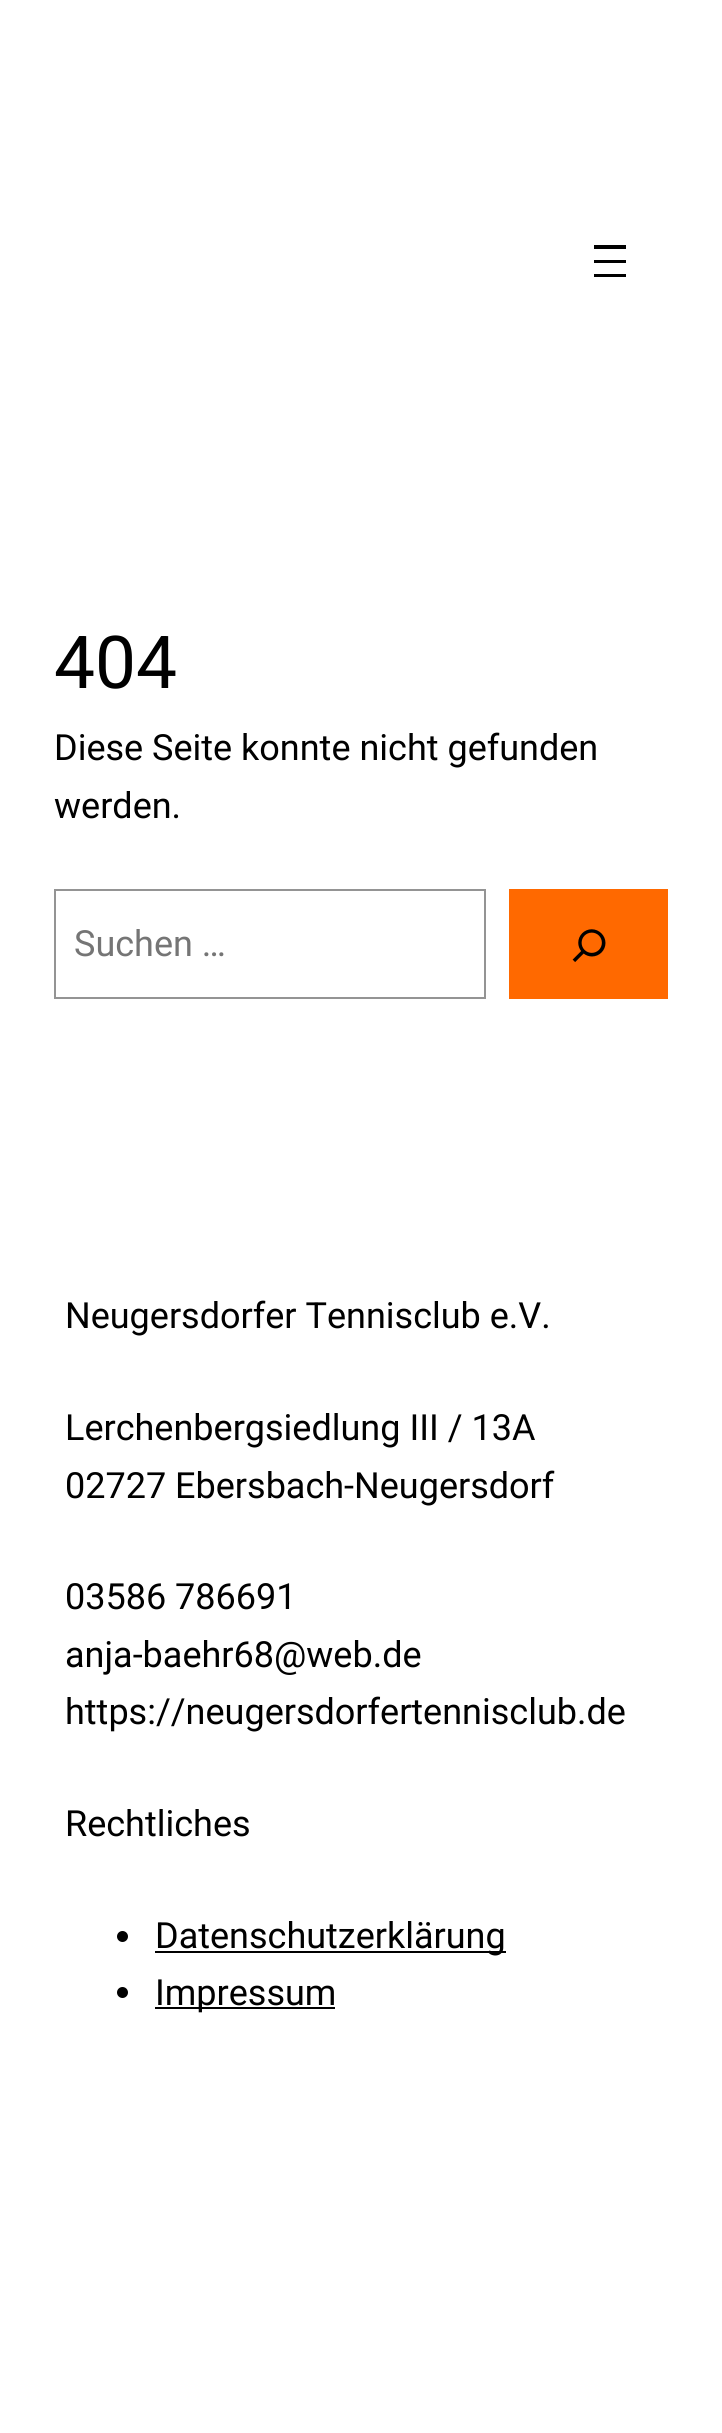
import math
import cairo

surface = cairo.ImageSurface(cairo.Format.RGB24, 722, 2433)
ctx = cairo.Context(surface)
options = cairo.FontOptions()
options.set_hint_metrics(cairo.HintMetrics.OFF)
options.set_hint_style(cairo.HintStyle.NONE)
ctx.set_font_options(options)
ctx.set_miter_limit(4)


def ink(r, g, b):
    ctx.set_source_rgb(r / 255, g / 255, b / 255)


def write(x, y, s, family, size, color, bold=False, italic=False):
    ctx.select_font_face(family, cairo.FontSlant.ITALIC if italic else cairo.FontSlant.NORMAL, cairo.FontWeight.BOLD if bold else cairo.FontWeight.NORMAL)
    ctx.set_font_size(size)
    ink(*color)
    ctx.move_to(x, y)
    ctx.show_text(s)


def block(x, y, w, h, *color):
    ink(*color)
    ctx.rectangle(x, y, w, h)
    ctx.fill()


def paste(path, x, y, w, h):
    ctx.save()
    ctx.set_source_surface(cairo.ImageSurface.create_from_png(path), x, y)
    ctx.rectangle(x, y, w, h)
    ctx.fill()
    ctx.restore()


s1 = dict(family="Roboto", size=73, color=(0, 0, 0))
s2 = dict(family="Roboto", size=36, color=(0, 0, 0))
s3 = dict(family="Roboto", size=36, color=(117, 117, 117))

ink(255, 255, 255)
ctx.paint()
block(594, 245, 32, 4, 0, 0, 0)
block(594, 260, 32, 3, 0, 0, 0)
block(594, 274, 32, 3, 0, 0, 0)
write(54, 688, "404", **s1)
write(54, 760, "Diese Seite konnte nicht gefunden", **s2)
write(54, 818, "werden.", **s2)
ctx.rectangle(55, 890, 430, 108)
ink(148, 148, 148)
ctx.stroke()
write(74, 956, "Suchen …", **s3)
block(509, 889, 159, 110, 255, 105, 0)
paste("pic1.png", 572, 929, 34, 33)
write(65, 1328, "Neugersdorfer Tennisclub e.V.", **s2)
write(65, 1440, "Lerchenbergsiedlung III / 13A", **s2)
write(65, 1498, "02727 Ebersbach-Neugersdorf", **s2)
write(65, 1609, "03586 786691", **s2)
write(65, 1667, "anja-baehr68@web.de", **s2)
write(65, 1724, "https://neugersdorfertennisclub.de", **s2)
write(65, 1836, "Rechtliches", **s2)
ctx.new_path()
ctx.arc(122.5, 1936.5, 5.5, 0, 2 * math.pi)
ctx.fill()
block(155, 1951, 351, 2, 0, 0, 0)
write(155, 1948, "Datenschutzerklärung", **s2)
ctx.new_path()
ctx.arc(122.5, 1992.5, 5.5, 0, 2 * math.pi)
ctx.fill()
block(155, 2007, 180, 2, 0, 0, 0)
write(155, 2005, "Impressum", **s2)
surface.write_to_png("screenshot.png")
